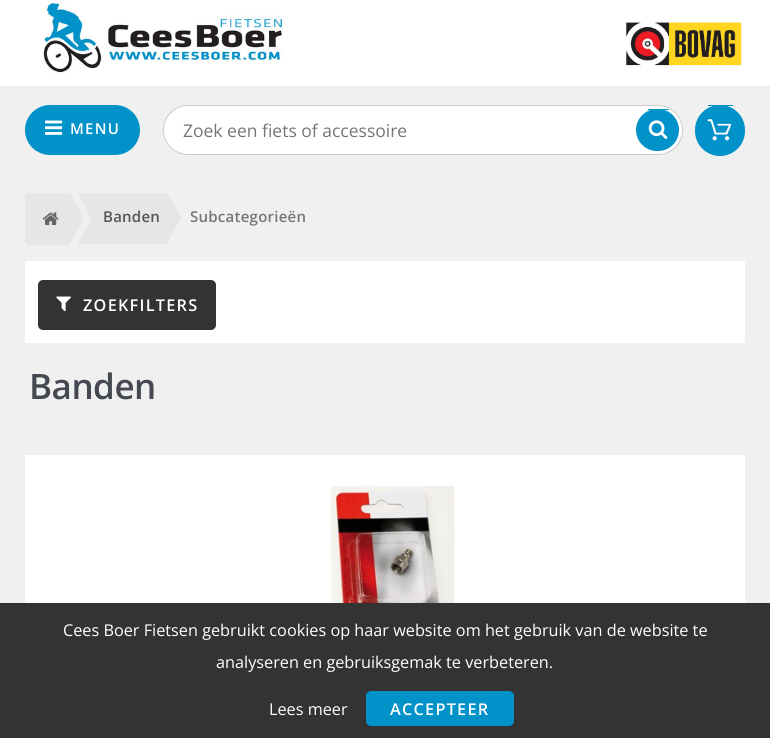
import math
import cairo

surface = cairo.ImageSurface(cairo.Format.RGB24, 770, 738)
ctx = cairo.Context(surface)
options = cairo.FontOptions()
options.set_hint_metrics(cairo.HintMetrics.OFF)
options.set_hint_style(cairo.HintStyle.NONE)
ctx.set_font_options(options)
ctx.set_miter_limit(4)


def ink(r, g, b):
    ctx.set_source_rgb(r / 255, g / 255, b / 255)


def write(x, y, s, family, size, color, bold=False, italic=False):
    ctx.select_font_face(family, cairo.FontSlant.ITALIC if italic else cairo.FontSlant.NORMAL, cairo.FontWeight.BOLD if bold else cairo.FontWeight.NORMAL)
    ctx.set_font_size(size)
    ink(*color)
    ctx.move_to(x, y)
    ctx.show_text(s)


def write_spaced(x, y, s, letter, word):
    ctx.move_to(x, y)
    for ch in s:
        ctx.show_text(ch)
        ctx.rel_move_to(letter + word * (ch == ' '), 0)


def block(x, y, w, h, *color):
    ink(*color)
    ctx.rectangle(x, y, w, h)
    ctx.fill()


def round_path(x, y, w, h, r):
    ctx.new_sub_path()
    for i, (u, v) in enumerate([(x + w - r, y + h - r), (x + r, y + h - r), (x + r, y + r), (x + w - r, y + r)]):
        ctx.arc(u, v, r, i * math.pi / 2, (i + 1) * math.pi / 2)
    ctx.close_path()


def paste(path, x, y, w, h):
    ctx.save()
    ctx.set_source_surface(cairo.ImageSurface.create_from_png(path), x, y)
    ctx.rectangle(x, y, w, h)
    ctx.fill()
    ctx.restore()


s1 = dict(family="Open Sans", size=17.5, color=(117, 117, 117))
s2 = dict(family="Open Sans", size=16.25, color=(255, 255, 255))

ink(240, 240, 240)
ctx.paint()
block(0, 0, 770, 86, 255, 255, 255)
paste("pic1.png", 42, 0, 241, 75)
paste("pic2.png", 626, 21, 116, 45)
ink(0, 146, 200)
round_path(25, 105, 115, 50, 25)
ctx.fill()
paste("pic3.png", 45, 120, 18, 15)
ctx.select_font_face("Open Sans SemiBold")
ctx.set_font_size(15)
ink(255, 255, 255)
write_spaced(70, 134, "MENU", 1.25, 0)
round_path(163.5, 105.5, 519, 49, 24.5)
ctx.fill_preserve()
ink(204, 204, 204)
ctx.set_line_width(1)
ctx.stroke()
write(183, 137, "Zoek een fiets of accessoire", **s1)
ink(0, 146, 200)
round_path(636, 109, 43, 42, 21)
ctx.fill()
block(648, 109, 21, 1, 0, 146, 200)
paste("pic4.png", 648, 120, 20, 19)
round_path(695, 105, 50, 51, 25)
ctx.fill()
block(708, 105, 25, 1, 0, 146, 200)
paste("pic5.png", 707, 119, 25, 22)
ink(230, 230, 230)
ctx.new_path()
ctx.move_to(30, 193)
ctx.line_to(69, 193)
ctx.line_to(69, 245)
ctx.line_to(30, 245)
ctx.curve_to(27, 245, 25, 243, 25, 240)
ctx.line_to(25, 198)
ctx.curve_to(25, 195, 27, 193, 30, 193)
ctx.close_path()
ctx.fill()
block(77, 193, 89, 51, 230, 230, 230)
ctx.save()
ctx.rectangle(25, 193, 720, 56)
ctx.clip()
ink(240, 240, 240)
ctx.new_path()
ctx.move_to(69, 261)
ctx.line_to(69, 176)
ctx.line_to(91, 219)
ctx.close_path()
ctx.fill()
ctx.restore()
ctx.new_path()
ctx.move_to(69, 246)
ctx.line_to(69, 191)
ctx.line_to(84, 219)
ctx.close_path()
ctx.fill()
ctx.select_font_face("Open Sans SemiBold")
ctx.set_font_size(15)
ink(85, 85, 85)
write_spaced(103, 222, "Banden", 0.25, 0)
ctx.save()
ctx.rectangle(25, 193, 720, 56)
ctx.clip()
ink(230, 230, 230)
ctx.new_path()
ctx.move_to(166, 245)
ctx.line_to(166, 190)
ctx.line_to(181, 218)
ctx.close_path()
ctx.fill()
ctx.restore()
ink(117, 117, 117)
write_spaced(190, 222, "Subcategorieën", 0.25, 0)
paste("pic6.png", 42, 212, 17, 13)
block(25, 261, 720, 82, 255, 255, 255)
ink(51, 51, 51)
round_path(38, 280, 178, 50, 5)
ctx.fill()
paste("pic7.png", 56, 296, 15, 16)
ctx.set_font_size(16.25)
ink(255, 255, 255)
write_spaced(83, 311, "ZOEKFILTERS", 1.25, 0)
ctx.set_font_size(35)
ink(68, 72, 80)
write_spaced(29, 399, "Banden", -0.5, 0)
ink(255, 255, 255)
round_path(25, 455, 720, 275, 2.5)
ctx.fill()
paste("pic8.png", 329, 485, 126, 118)
block(0, 603, 770, 135, 51, 51, 51)
write(63, 636, "Cees Boer Fietsen gebruikt cookies op haar website om het gebruik van de website te", **s2)
write(216, 668, "analyseren en gebruiksgemak te verbeteren.", **s2)
write(269, 715, "Lees meer", **s2)
ink(0, 146, 200)
round_path(366, 691, 148, 35, 5)
ctx.fill()
ctx.select_font_face("Open Sans SemiBold")
ink(255, 255, 255)
write_spaced(390, 715, "ACCEPTEER", 1.25, 0)
surface.write_to_png("screenshot.png")
